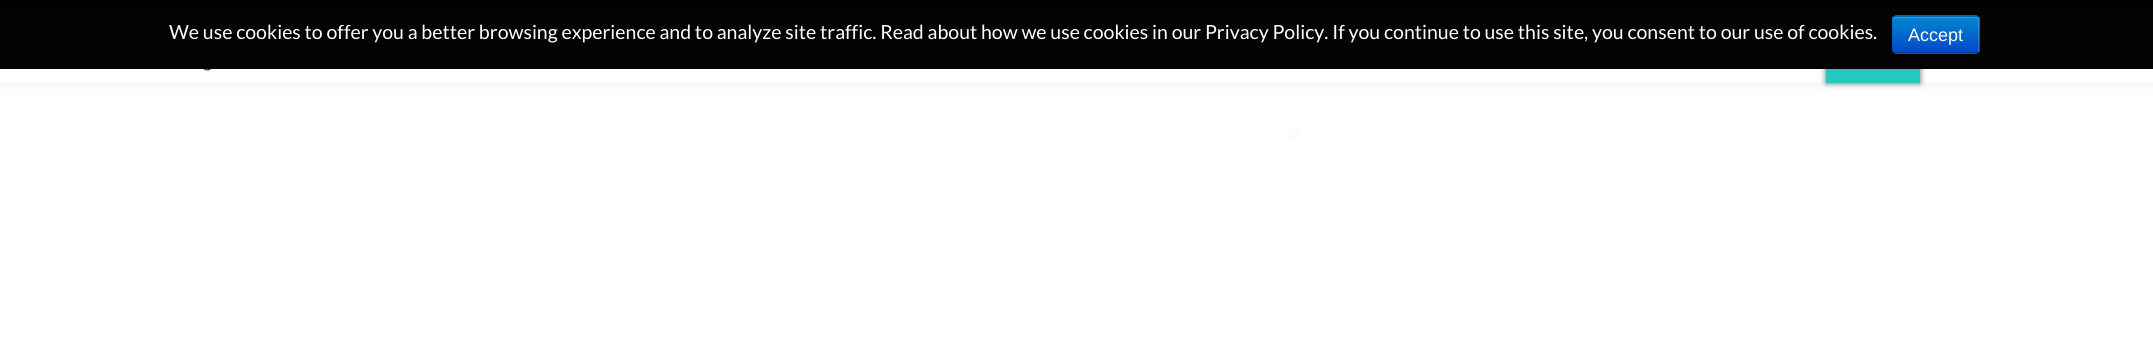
import math
import cairo

surface = cairo.ImageSurface(cairo.Format.RGB24, 2153, 363)
ctx = cairo.Context(surface)
options = cairo.FontOptions()
options.set_hint_metrics(cairo.HintMetrics.OFF)
options.set_hint_style(cairo.HintStyle.NONE)
ctx.set_font_options(options)
ctx.set_miter_limit(4)


def ink(r, g, b):
    ctx.set_source_rgb(r / 255, g / 255, b / 255)


def write(x, y, s, family, size, color, bold=False, italic=False):
    ctx.select_font_face(family, cairo.FontSlant.ITALIC if italic else cairo.FontSlant.NORMAL, cairo.FontWeight.BOLD if bold else cairo.FontWeight.NORMAL)
    ctx.set_font_size(size)
    ink(*color)
    ctx.move_to(x, y)
    ctx.show_text(s)


def block(x, y, w, h, *color):
    ink(*color)
    ctx.rectangle(x, y, w, h)
    ctx.fill()


def round_path(x, y, w, h, r):
    ctx.new_sub_path()
    for i, (u, v) in enumerate([(x + w - r, y + h - r), (x + r, y + h - r), (x + r, y + r), (x + w - r, y + r)]):
        ctx.arc(u, v, r, i * math.pi / 2, (i + 1) * math.pi / 2)
    ctx.close_path()


def blur_box(x, y, w, h, r, blur, alpha):
    ctx.push_group_with_content(cairo.Content.ALPHA)
    ctx.set_operator(cairo.Operator.SOURCE)
    for i in range(15, -16, -2):
        e = blur * i / 6
        if min(w, h) + 2 * e > 0:
            ctx.set_source_rgba(0, 0, 0, alpha * math.erfc((i - 1) / 8.5) / 2)
            round_path(x - e, y - e, w + 2 * e, h + 2 * e, max(0, min(r + e + blur * .6, min(w, h) / 2 + e)))
            ctx.fill()
    ctx.mask(ctx.pop_group())


def paste(path, x, y, w, h):
    ctx.save()
    ctx.set_source_surface(cairo.ImageSurface.create_from_png(path), x, y)
    ctx.rectangle(x, y, w, h)
    ctx.fill()
    ctx.restore()


s1 = dict(family="Lato", size=19.5, color=(255, 255, 255))
s2 = dict(family="Liberation Sans", size=18, color=(255, 255, 255))

ink(255, 255, 255)
ctx.paint()
ink(15, 15, 15)
blur_box(0, 3, 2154, 83, 0, 4.5, 0.05)
block(0, 69, 2153, 14, 255, 255, 255)
paste("pic1.png", 203, 69, 8, 2)
ink(63, 63, 63)
blur_box(1826, 0, 94, 83, 0, 3, 0.78)
block(1826, 69, 94, 14, 37, 200, 191)
gradient = cairo.LinearGradient(0, 3.8, 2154, 3.7)
gradient.add_color_stop_rgba(0, 0, 0, 0, 1)
gradient.add_color_stop_rgba(1, 0.004, 0.004, 0.004, 1)
ctx.set_source(gradient)
ctx.rectangle(0, 0, 2153, 8)
ctx.fill()
ink(252, 252, 252)
ctx.arc(1293, 134, 11, 0, 2 * math.pi)
ctx.fill_preserve()
ink(255, 255, 255)
ctx.set_line_width(8)
ctx.stroke()
block(0, 8, 2153, 61, 3, 3, 3)
write(169, 39, "We use cookies to offer you a better browsing experience and to analyze site traffic. Read about how we use cookies in our Privacy Policy. If you continue to use this site, you consent to our use of cookies.", **s1)
ink(3, 110, 205)
round_path(1892, 15, 88, 39, 5)
ctx.fill()
ctx.save()
round_path(1892, 15, 88, 39, 5)
ctx.clip()
gradient = cairo.LinearGradient(1936, 16, 1936, 53)
gradient.add_color_stop_rgba(0, 0.012, 0.537, 0.804, 1)
gradient.add_color_stop_rgba(1, 0.012, 0.275, 0.804, 1)
ctx.set_source(gradient)
ctx.rectangle(1892, 17, 88, 36)
ctx.fill()
ctx.restore()
ctx.set_source_rgba(1, 1, 1, 0.2)
ctx.new_path()
ctx.move_to(1896, 18)
ctx.line_to(1963, 18)
ctx.curve_to(1981, 18, 1978, 15, 1978, 31)
ctx.line_to(1978, 52)
ctx.curve_to(1979, 52, 1979, 51, 1979, 50)
ctx.line_to(1979, 20)
ctx.curve_to(1979, 18, 1978, 17, 1976, 17)
ctx.line_to(1896, 17)
ctx.curve_to(1894, 17, 1893, 18, 1893, 20)
ctx.line_to(1893, 21)
ctx.curve_to(1893, 19, 1894, 18, 1896, 18)
ctx.close_path()
ctx.fill()
ctx.new_path()
ctx.move_to(1978, 52)
ctx.line_to(1976, 53)
ctx.line_to(1895.5, 53)
ctx.line_to(1893.5, 52)
ctx.set_source_rgba(0.012, 0.012, 0.012, 0.25)
ctx.set_line_width(1.5)
ctx.stroke()
ctx.new_path()
ctx.move_to(1893.5, 52)
ctx.curve_to(1891.5, 50.5, 1892, 46.5, 1892, 44.5)
ctx.line_to(1892, 34.5)
ctx.curve_to(1892, 13.5, 1888.5, 16, 1909, 16)
ctx.line_to(1962, 16)
ctx.curve_to(1983, 16, 1979, 13.5, 1979, 34.5)
ctx.line_to(1979, 44.5)
ctx.curve_to(1979, 46.5, 1980, 50.5, 1978, 52)
ctx.set_source_rgba(0.012, 0.012, 0.012, 0.1)
ctx.stroke()
write(1908, 41, "Accept", **s2)
surface.write_to_png("screenshot.png")
